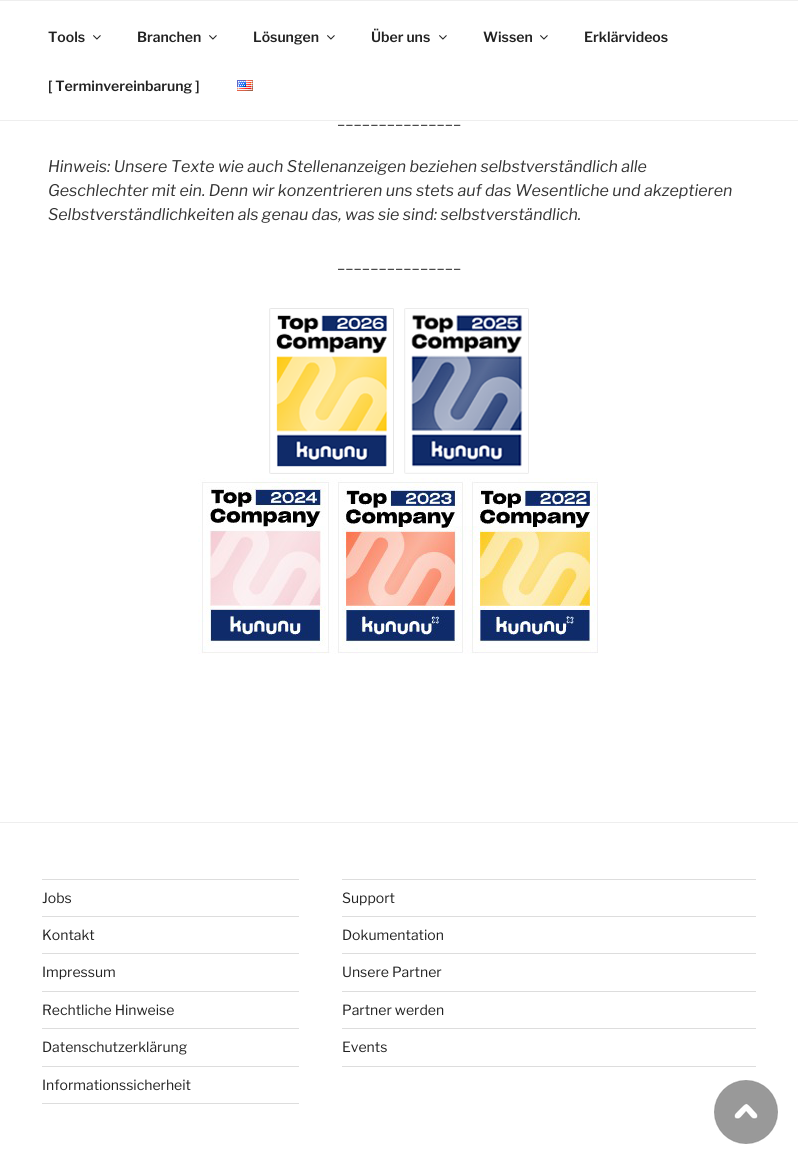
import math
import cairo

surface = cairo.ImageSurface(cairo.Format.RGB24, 798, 1164)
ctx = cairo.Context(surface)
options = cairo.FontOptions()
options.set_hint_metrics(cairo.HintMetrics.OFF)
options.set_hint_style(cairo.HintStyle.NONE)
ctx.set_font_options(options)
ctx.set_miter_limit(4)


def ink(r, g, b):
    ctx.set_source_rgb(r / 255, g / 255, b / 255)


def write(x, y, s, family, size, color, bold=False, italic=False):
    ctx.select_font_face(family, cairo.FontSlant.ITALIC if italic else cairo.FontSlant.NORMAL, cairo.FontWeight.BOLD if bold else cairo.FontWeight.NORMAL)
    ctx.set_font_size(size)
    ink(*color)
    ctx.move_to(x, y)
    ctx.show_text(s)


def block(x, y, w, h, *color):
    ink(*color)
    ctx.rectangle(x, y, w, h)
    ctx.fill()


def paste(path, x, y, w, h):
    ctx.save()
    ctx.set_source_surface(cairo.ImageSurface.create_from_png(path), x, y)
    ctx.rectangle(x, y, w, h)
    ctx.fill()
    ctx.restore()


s1 = dict(family="Libre Franklin SemiBold", size=14, color=(34, 34, 34))
s2 = dict(family="Libre Franklin", size=16, color=(51, 51, 51))
s3 = dict(family="Libre Franklin", size=16, color=(51, 51, 51), italic=True)
s4 = dict(family="Libre Franklin", size=14, color=(34, 34, 34))

ink(255, 255, 255)
ctx.paint()
block(0, 0, 798, 1, 238, 238, 238)
block(0, 120, 798, 1, 238, 238, 238)
write(48, 42, "Tools", **s1)
paste("pic1.png", 93, 35, 8, 5)
write(137, 42, "Branchen", **s1)
paste("pic1.png", 209, 35, 8, 5)
write(253, 42, "Lösungen", **s1)
paste("pic1.png", 327, 35, 8, 5)
write(371, 42, "Über uns", **s1)
paste("pic1.png", 439, 35, 8, 5)
write(483, 42, "Wissen", **s1)
paste("pic1.png", 540, 35, 8, 5)
write(584, 42, "Erklärvideos", **s1)
write(48, 91, "[ Terminvereinbarung ]", **s1)
paste("pic2.png", 237, 80, 16, 11)
write(337, 124, "_______________", **s2)
write(48, 172, "Hinweis: Unsere Texte wie auch Stellenanzeigen beziehen selbstverständlich alle", **s3)
write(48, 196, "Geschlechter mit ein. Denn wir konzentrieren uns stets auf das Wesentliche und akzeptieren", **s3)
write(48, 220, "Selbstverständlichkeiten als genau das, was sie sind: selbstverständlich.", **s3)
write(337, 268, "_______________", **s2)
paste("pic3.png", 198, 308, 400, 346)
block(0, 822, 798, 1, 238, 238, 238)
block(42, 879, 257, 1, 221, 221, 221)
block(42, 916, 257, 1, 221, 221, 221)
write(42, 903, "Jobs", **s4)
block(42, 953, 257, 1, 221, 221, 221)
write(42, 940, "Kontakt", **s4)
block(42, 991, 257, 1, 221, 221, 221)
write(42, 977, "Impressum", **s4)
block(42, 1028, 257, 1, 221, 221, 221)
write(42, 1015, "Rechtliche Hinweise", **s4)
block(42, 1066, 257, 1, 221, 221, 221)
write(42, 1052, "Datenschutzerklärung", **s4)
block(42, 1103, 257, 1, 221, 221, 221)
write(42, 1090, "Informationssicherheit", **s4)
block(342, 879, 414, 1, 221, 221, 221)
block(342, 916, 414, 1, 221, 221, 221)
write(342, 903, "Support", **s4)
block(342, 953, 414, 1, 221, 221, 221)
write(342, 940, "Dokumentation", **s4)
block(342, 991, 414, 1, 221, 221, 221)
write(342, 977, "Unsere Partner", **s4)
block(342, 1028, 414, 1, 221, 221, 221)
write(342, 1015, "Partner werden", **s4)
block(342, 1066, 414, 1, 221, 221, 221)
write(342, 1052, "Events", **s4)
paste("pic4.png", 714, 1080, 64, 64)
surface.write_to_png("screenshot.png")
